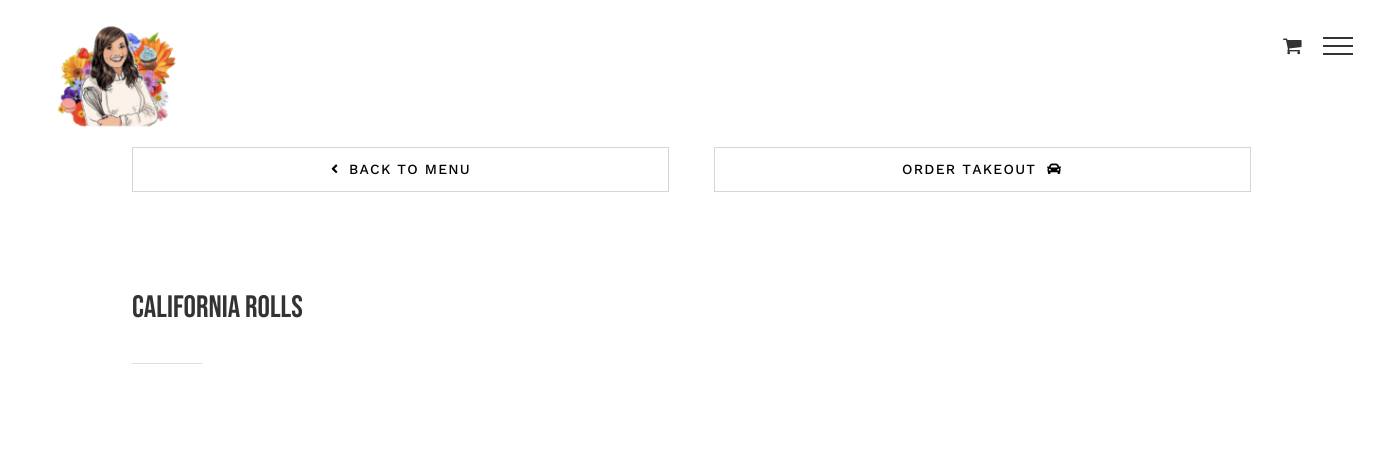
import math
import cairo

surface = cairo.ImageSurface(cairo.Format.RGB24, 1383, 449)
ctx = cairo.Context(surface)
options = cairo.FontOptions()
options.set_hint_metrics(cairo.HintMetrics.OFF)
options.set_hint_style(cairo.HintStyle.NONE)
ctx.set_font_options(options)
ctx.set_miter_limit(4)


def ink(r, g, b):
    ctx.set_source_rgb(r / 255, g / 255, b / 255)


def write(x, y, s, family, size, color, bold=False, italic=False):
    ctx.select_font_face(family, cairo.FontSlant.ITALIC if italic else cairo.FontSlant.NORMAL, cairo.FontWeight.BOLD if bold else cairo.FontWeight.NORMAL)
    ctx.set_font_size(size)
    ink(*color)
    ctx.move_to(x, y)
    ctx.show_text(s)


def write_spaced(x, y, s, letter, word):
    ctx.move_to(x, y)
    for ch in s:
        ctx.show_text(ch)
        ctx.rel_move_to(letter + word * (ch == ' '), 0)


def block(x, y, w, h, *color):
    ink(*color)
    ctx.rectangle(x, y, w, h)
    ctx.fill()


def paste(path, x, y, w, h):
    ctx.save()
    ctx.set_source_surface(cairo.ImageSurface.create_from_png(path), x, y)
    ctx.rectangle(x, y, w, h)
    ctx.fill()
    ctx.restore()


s1 = dict(family="Bebas Neue", size=31, color=(51, 51, 51))

ink(255, 255, 255)
ctx.paint()
paste("pic1.png", 57, 26, 119, 101)
paste("pic2.png", 1283, 38, 19, 17)
block(1323, 37, 30, 2, 51, 51, 51)
block(1323, 45, 30, 2, 51, 51, 51)
block(1323, 53, 30, 2, 51, 51, 51)
ctx.rectangle(132.5, 147.5, 536, 44)
ink(214, 214, 214)
ctx.set_line_width(1)
ctx.stroke()
paste("pic3.png", 331, 164, 7, 10)
ctx.select_font_face("Work Sans Medium")
ctx.set_font_size(14)
ink(3, 3, 3)
write_spaced(349, 174, "BACK TO MENU", 1.25, 0)
ctx.rectangle(714.5, 147.5, 536, 44)
ink(214, 214, 214)
ctx.stroke()
ink(3, 3, 3)
write_spaced(902, 174, "ORDER TAKEOUT", 1.25, 0)
paste("pic4.png", 1047, 163, 14, 11)
write(132, 317, "California Rolls", **s1)
block(132, 363, 70, 1, 224, 222, 222)
surface.write_to_png("screenshot.png")
